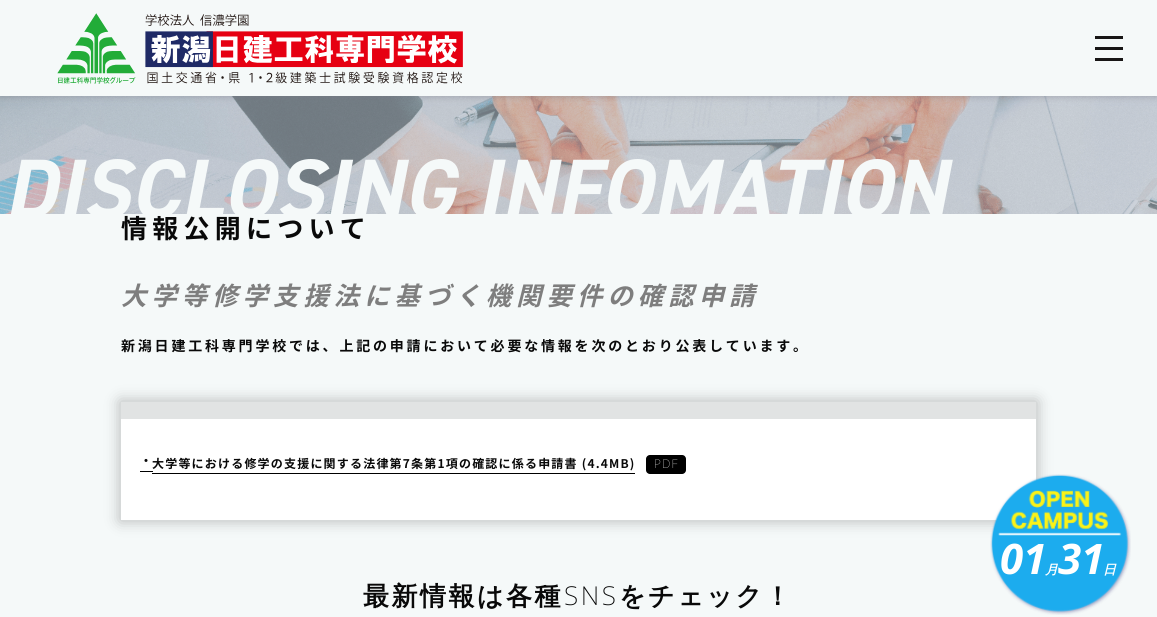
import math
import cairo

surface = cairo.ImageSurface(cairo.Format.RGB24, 1157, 617)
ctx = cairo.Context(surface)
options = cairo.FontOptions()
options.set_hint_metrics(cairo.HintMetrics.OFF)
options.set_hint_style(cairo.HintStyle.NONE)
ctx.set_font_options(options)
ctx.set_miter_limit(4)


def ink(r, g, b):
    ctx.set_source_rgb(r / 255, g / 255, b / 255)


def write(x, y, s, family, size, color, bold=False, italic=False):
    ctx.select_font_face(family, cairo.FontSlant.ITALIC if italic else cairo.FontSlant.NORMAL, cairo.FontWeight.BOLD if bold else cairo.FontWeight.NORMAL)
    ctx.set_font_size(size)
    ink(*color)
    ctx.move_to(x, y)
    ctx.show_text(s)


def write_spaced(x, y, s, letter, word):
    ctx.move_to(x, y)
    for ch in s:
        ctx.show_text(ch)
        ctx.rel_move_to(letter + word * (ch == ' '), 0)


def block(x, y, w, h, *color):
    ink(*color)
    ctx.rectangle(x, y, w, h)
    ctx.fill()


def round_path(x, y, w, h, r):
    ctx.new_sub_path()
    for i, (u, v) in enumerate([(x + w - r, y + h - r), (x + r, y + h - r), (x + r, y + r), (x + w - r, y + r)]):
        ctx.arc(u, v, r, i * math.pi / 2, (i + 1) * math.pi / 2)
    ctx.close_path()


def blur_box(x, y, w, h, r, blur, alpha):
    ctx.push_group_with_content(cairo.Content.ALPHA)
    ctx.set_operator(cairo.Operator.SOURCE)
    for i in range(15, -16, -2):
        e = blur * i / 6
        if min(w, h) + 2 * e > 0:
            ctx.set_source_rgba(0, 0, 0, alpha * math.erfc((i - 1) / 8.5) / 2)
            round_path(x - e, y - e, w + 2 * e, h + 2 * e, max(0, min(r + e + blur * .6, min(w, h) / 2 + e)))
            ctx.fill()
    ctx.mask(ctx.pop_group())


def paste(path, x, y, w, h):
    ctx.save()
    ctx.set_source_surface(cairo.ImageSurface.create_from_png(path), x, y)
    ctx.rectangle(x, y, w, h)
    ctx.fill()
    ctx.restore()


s1 = dict(family="Noto Sans", size=42, color=(255, 255, 255), bold=True, italic=True)
s2 = dict(family="WenQuanYi Zen Hei", size=13, color=(255, 255, 255), bold=True, italic=True)

ink(245, 249, 249)
ctx.paint()
paste("pic2.png", 0, 96, 1157, 118)
ink(116, 117, 131)
blur_box(0, 0, 1157, 96, 0, 4, 0.51)
block(0, 0, 1157, 96, 245, 249, 249)
paste("pic1.png", 57, 13, 406, 71)
block(1095, 36, 28, 3, 24, 22, 22)
block(1095, 47, 28, 3, 24, 22, 22)
block(1095, 58, 28, 3, 24, 22, 22)
paste("pic3.png", 11, 159, 942, 55)
ctx.select_font_face("Noto Sans CJK JP", cairo.FontSlant.NORMAL, cairo.FontWeight.BOLD)
ctx.set_font_size(26)
ink(9, 9, 9)
write_spaced(121, 238, "情報公開について", 5.25, 0)
ctx.select_font_face("Noto Sans CJK JP", cairo.FontSlant.ITALIC, cairo.FontWeight.BOLD)
ctx.set_font_size(25.3)
ink(126, 126, 126)
write_spaced(121, 305, "大学等修学支援法に基づく機関要件の確認申請", 5.1, 0)
ctx.select_font_face("Noto Sans CJK JP", cairo.FontSlant.NORMAL, cairo.FontWeight.BOLD)
ctx.set_font_size(14)
ink(9, 9, 9)
write_spaced(121, 351, "新潟日建工科専門学校では、上記の申請において必要な情報を次のとおり公表しています。", 2.8, 0)
ink(130, 130, 130)
blur_box(120, 401, 917, 120, 0, 7.5, 0.55)
block(121, 419, 915, 101, 255, 255, 255)
block(121, 402, 915, 17, 225, 227, 227)
block(140, 471, 13, 1, 0, 0, 0)
block(152, 473, 483, 1, 0, 0, 0)
ctx.set_font_size(12)
ink(9, 9, 9)
write_spaced(140, 465, "・", 1.2, 0)
write_spaced(152, 468, "大学等における修学の支援に関する法律第7条第1項の確認に係る申請書 (4.4MB)", 1.2, 0)
ink(0, 0, 0)
round_path(646, 455, 40, 19, 4)
ctx.fill()
ctx.select_font_face("Noto Sans Thin")
ink(255, 255, 255)
write_spaced(654, 468, "PDF", 1.2, 0)
ctx.select_font_face("WenQuanYi Zen Hei", cairo.FontSlant.NORMAL, cairo.FontWeight.BOLD)
ctx.set_font_size(26)
ink(9, 9, 9)
write_spaced(363, 605, "最新情報は各種", 2.5, 0)
ctx.select_font_face("Noto Sans ExtraLight")
write_spaced(564, 605, "SNS", 2.5, 0)
ctx.select_font_face("WenQuanYi Zen Hei", cairo.FontSlant.NORMAL, cairo.FontWeight.BOLD)
write_spaced(619, 605, "をチェック！", 2.5, 0)
paste("pic4.png", 990, 474, 141, 141)
write(1000, 574, "01", **s1)
write(1045, 574, "月", **s2)
write(1058, 574, "31", **s1)
write(1103, 574, "日", **s2)
surface.write_to_png("screenshot.png")
